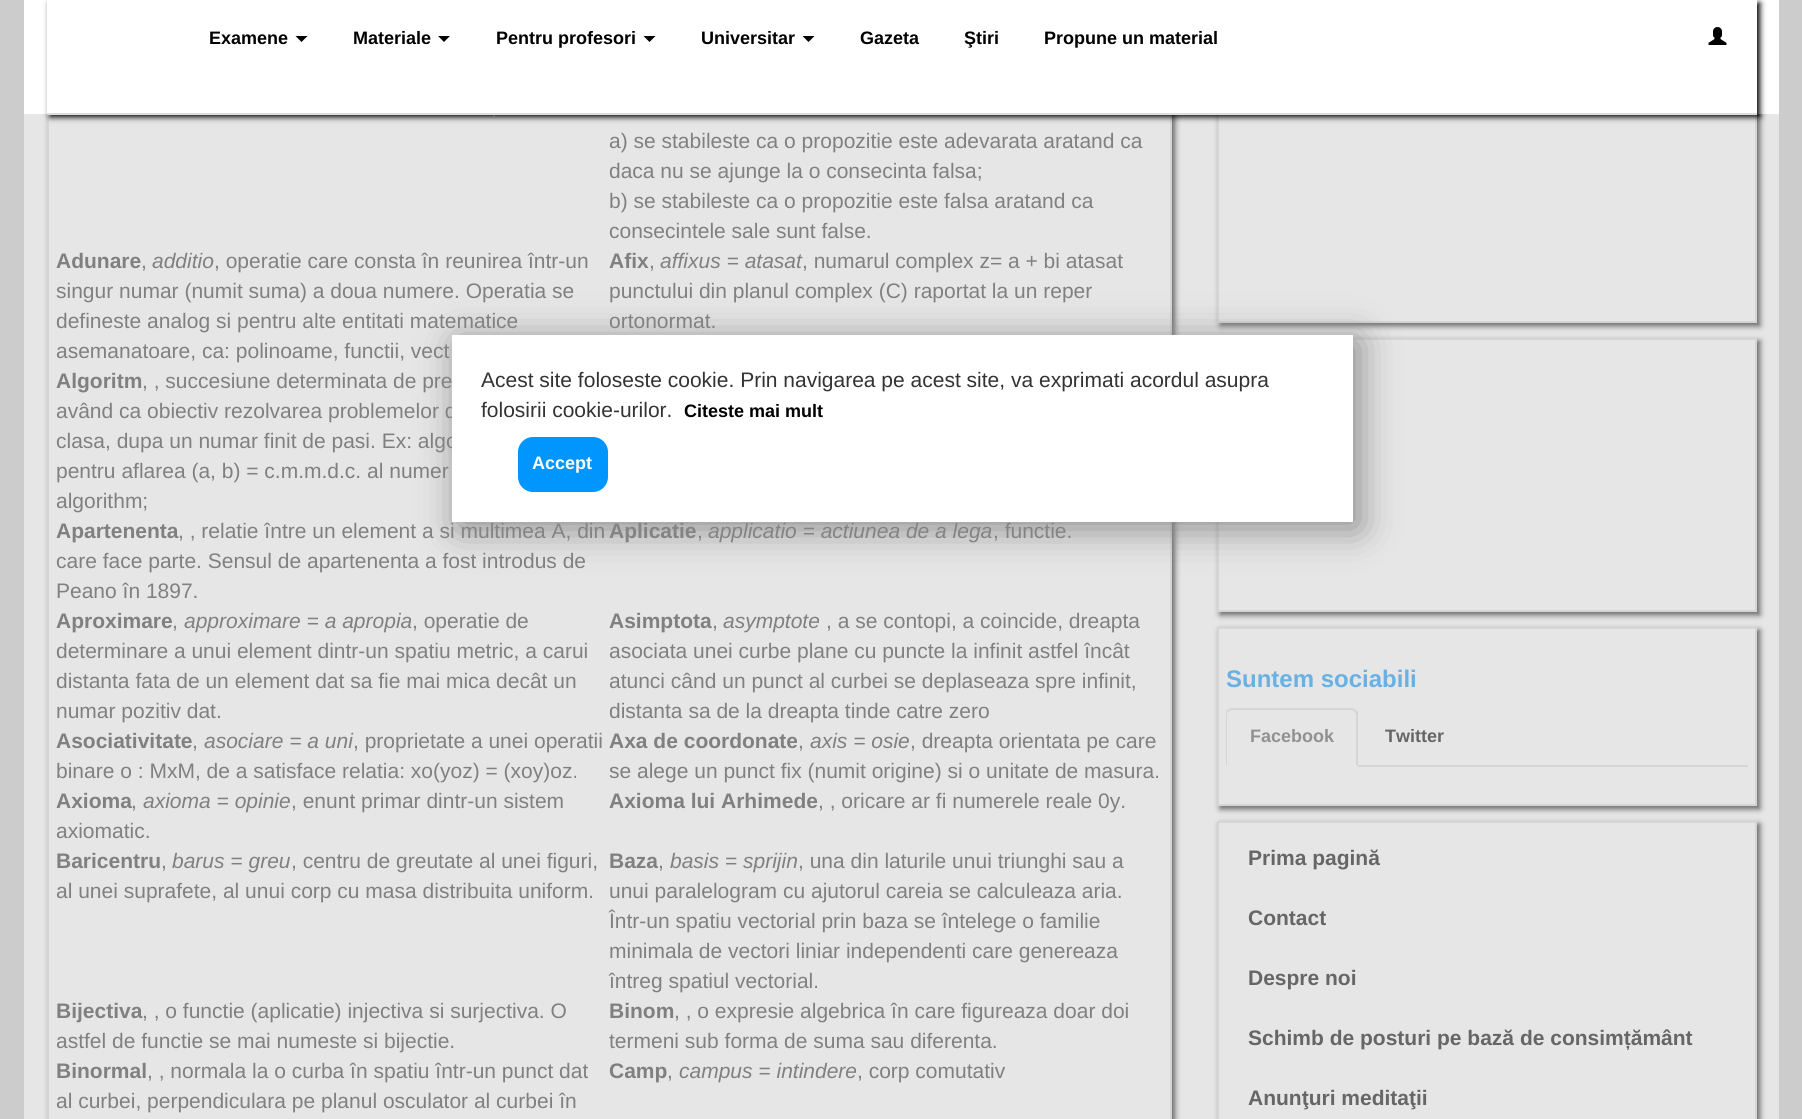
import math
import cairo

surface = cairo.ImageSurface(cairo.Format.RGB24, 1802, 1119)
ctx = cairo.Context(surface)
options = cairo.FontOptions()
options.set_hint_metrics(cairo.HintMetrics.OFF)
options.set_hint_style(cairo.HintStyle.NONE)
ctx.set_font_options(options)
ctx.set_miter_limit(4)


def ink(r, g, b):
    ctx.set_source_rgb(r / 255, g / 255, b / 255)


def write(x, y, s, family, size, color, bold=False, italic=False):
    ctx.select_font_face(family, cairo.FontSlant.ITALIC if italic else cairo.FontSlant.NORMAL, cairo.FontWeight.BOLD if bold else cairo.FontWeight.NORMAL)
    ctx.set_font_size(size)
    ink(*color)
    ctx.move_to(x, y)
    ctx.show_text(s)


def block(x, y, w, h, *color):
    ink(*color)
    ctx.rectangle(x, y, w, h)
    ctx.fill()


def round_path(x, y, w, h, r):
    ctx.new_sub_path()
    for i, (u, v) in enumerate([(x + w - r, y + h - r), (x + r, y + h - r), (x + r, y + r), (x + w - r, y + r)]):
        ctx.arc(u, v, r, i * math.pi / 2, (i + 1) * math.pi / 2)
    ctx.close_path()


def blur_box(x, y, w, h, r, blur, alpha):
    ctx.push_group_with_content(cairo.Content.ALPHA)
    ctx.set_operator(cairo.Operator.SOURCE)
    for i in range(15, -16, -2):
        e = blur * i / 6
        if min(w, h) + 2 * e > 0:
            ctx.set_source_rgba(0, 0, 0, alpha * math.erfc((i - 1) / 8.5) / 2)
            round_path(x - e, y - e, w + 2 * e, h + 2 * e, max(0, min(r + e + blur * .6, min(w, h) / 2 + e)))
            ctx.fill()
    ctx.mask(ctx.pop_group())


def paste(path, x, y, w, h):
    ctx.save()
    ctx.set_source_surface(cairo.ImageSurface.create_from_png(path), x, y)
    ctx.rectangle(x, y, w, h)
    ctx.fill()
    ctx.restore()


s1 = dict(family="Liberation Sans", size=18, color=(0, 0, 0), bold=True)
s2 = dict(family="Liberation Sans", size=21, color=(128, 128, 128))
s3 = dict(family="Liberation Sans", size=21, color=(128, 128, 128), bold=True)
s4 = dict(family="Liberation Sans", size=21, color=(128, 128, 128), italic=True)
s5 = dict(family="Liberation Sans", size=24, color=(103, 177, 229), bold=True)
s6 = dict(family="Liberation Sans", size=18, color=(145, 145, 145), bold=True)
s7 = dict(family="Liberation Sans", size=18, color=(102, 102, 102), bold=True)
s8 = dict(family="Liberation Sans", size=21, color=(102, 102, 102), bold=True)
s9 = dict(family="Liberation Sans", size=21, color=(51, 51, 51))
s10 = dict(family="Liberation Sans", size=18, color=(255, 255, 255), bold=True)

ink(204, 204, 204)
ctx.paint()
block(24, 114, 1755, 1005, 230, 230, 230)
ctx.save()
ctx.set_fill_rule(cairo.FillRule.EVEN_ODD)
ctx.new_path()
ctx.move_to(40, 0)
ctx.line_to(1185, 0)
ctx.line_to(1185, 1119)
ctx.line_to(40, 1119)
ctx.close_path()
ctx.move_to(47, -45)
ctx.line_to(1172, -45)
ctx.line_to(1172, 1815)
ctx.line_to(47, 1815)
ctx.close_path()
ctx.clip()
ink(102, 102, 102)
blur_box(50, -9, 1125, 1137, 0, 3, 1)
ctx.restore()
ctx.rectangle(48, -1, 1123, 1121)
ink(213, 213, 213)
ctx.stroke()
ctx.save()
ctx.set_fill_rule(cairo.FillRule.EVEN_ODD)
ctx.new_path()
ctx.move_to(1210, 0)
ctx.line_to(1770, 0)
ctx.line_to(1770, 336)
ctx.line_to(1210, 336)
ctx.close_path()
ctx.move_to(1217, -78)
ctx.line_to(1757, -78)
ctx.line_to(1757, 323)
ctx.line_to(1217, 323)
ctx.close_path()
ctx.clip()
ink(102, 102, 102)
blur_box(1220, -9, 540, 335, 0, 3, 1)
ctx.restore()
ctx.rectangle(1218, -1, 538, 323)
ctx.stroke()
block(24, 0, 1755, 114, 255, 255, 255)
ctx.save()
ctx.set_fill_rule(cairo.FillRule.EVEN_ODD)
ctx.new_path()
ctx.move_to(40, 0)
ctx.line_to(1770, 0)
ctx.line_to(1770, 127)
ctx.line_to(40, 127)
ctx.close_path()
ctx.move_to(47, 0)
ctx.line_to(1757, 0)
ctx.line_to(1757, 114)
ctx.line_to(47, 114)
ctx.close_path()
ctx.clip()
ink(0, 0, 0)
blur_box(50, 3, 1710, 114, 0, 3, 1)
ctx.restore()
block(47, 113, 1710, 2, 221, 221, 221)
write(209, 44, "Examene", **s1)
ctx.new_path()
ctx.move_to(295.5, 36)
ctx.line_to(307.5, 36)
ctx.line_to(301.5, 42)
ctx.close_path()
ctx.fill()
write(353, 44, "Materiale", **s1)
ctx.new_path()
ctx.move_to(438, 36)
ctx.line_to(450, 36)
ctx.line_to(444, 42)
ctx.close_path()
ctx.fill()
write(496, 44, "Pentru profesori", **s1)
ctx.new_path()
ctx.move_to(643.5, 36)
ctx.line_to(655.5, 36)
ctx.line_to(649.5, 42)
ctx.close_path()
ctx.fill()
write(701, 44, "Universitar", **s1)
ctx.new_path()
ctx.move_to(802.5, 36)
ctx.line_to(814.5, 36)
ctx.line_to(808.5, 42)
ctx.close_path()
ctx.fill()
write(860, 44, "Gazeta", **s1)
write(964, 44, "Ştiri", **s1)
write(1044, 44, "Propune un material", **s1)
paste("pic1.png", 1708, 27, 19, 18)
write(491, 118, ".", **s2)
write(609, 148, "a) se stabileste ca o propozitie este adevarata aratand ca", **s2)
write(609, 178, "daca nu se ajunge la o consecinta falsa;", **s2)
write(609, 208, "b) se stabileste ca o propozitie este falsa aratand ca", **s2)
write(609, 238, "consecintele sale sunt false.", **s2)
write(56, 268, "Adunare", **s3)
write(141, 268, ",", **s2)
write(152, 268, "additio", **s4)
write(214, 268, ", operatie care consta în reunirea într-un", **s2)
write(56, 298, "singur numar (numit suma) a doua numere. Operatia se", **s2)
write(56, 328, "defineste analog si pentru alte entitati matematice", **s2)
write(56, 358, "asemanatoare, ca: polinoame, functii, vect", **s2)
write(609, 268, "Afix", **s3)
write(649, 268, ",", **s2)
write(660, 268, "affixus = atasat", **s4)
write(802, 268, ", numarul complex z= a + bi atasat", **s2)
write(609, 298, "punctului din planul complex (C) raportat la un reper", **s2)
write(609, 328, "ortonormat.", **s2)
write(56, 388, "Algoritm", **s3)
write(142, 388, ", , succesiune determinata de pre", **s2)
write(56, 418, "având ca obiectiv rezolvarea problemelor d", **s2)
write(56, 448, "clasa, dupa un numar finit de pasi. Ex: algo", **s2)
write(56, 478, "pentru aflarea (a, b) = c.m.m.d.c. al numer", **s2)
write(56, 508, "algorithm;", **s2)
write(56, 538, "Apartenenta", **s3)
write(178, 538, ", , relatie între un element a si multimea A, din", **s2)
write(56, 568, "care face parte. Sensul de apartenenta a fost introdus de", **s2)
write(56, 598, "Peano în 1897.", **s2)
write(609, 538, "Aplicatie", **s3)
write(697, 538, ",", **s2)
write(708, 538, "applicatio = actiunea de a lega", **s4)
write(993, 538, ", functie.", **s2)
write(56, 628, "Aproximare", **s3)
write(172, 628, ",", **s2)
write(184, 628, "approximare = a apropia", **s4)
write(412, 628, ", operatie de", **s2)
write(56, 658, "determinare a unui element dintr-un spatiu metric, a carui", **s2)
write(56, 688, "distanta fata de un element dat sa fie mai mica decât un", **s2)
write(56, 718, "numar pozitiv dat.", **s2)
write(609, 628, "Asimptota", **s3)
write(712, 628, ",", **s2)
write(723, 628, "asymptote", **s4)
write(826, 628, ", a se contopi, a coincide, dreapta", **s2)
write(609, 658, "asociata unei curbe plane cu puncte la infinit astfel încât", **s2)
write(609, 688, "atunci când un punct al curbei se deplaseaza spre infinit,", **s2)
write(609, 718, "distanta sa de la dreapta tinde catre zero", **s2)
write(56, 748, "Asociativitate", **s3)
write(192, 748, ",", **s2)
write(204, 748, "asociare = a uni", **s4)
write(353, 748, ", proprietate a unei operatii", **s2)
write(56, 778, "binare o : MxM, de a satisface relatia: xo(yoz) = (xoy)oz.", **s2)
write(609, 748, "Axa de coordonate", **s3)
write(798, 748, ",", **s2)
write(810, 748, "axis = osie", **s4)
write(910, 748, ", dreapta orientata pe care", **s2)
write(609, 778, "se alege un punct fix (numit origine) si o unitate de masura.", **s2)
write(56, 808, "Axioma", **s3)
write(131, 808, ",", **s2)
write(143, 808, "axioma = opinie", **s4)
write(291, 808, ", enunt primar dintr-un sistem", **s2)
write(56, 838, "axiomatic.", **s2)
write(609, 808, "Axioma lui Arhimede", **s3)
write(818, 808, ", , oricare ar fi numerele reale 0y.", **s2)
write(56, 868, "Baricentru", **s3)
write(161, 868, ",", **s2)
write(172, 868, "barus = greu", **s4)
write(291, 868, ", centru de greutate al unei figuri,", **s2)
write(56, 898, "al unei suprafete, al unui corp cu masa distribuita uniform.", **s2)
write(609, 868, "Baza", **s3)
write(658, 868, ",", **s2)
write(670, 868, "basis = sprijin", **s4)
write(798, 868, ", una din laturile unui triunghi sau a", **s2)
write(609, 898, "unui paralelogram cu ajutorul careia se calculeaza aria.", **s2)
write(609, 928, "Într-un spatiu vectorial prin baza se întelege o familie", **s2)
write(609, 958, "minimala de vectori liniar independenti care genereaza", **s2)
write(609, 988, "întreg spatiul vectorial.", **s2)
write(56, 1018, "Bijectiva", **s3)
write(142, 1018, ", , o functie (aplicatie) injectiva si surjectiva. O", **s2)
write(56, 1048, "astfel de functie se mai numeste si bijectie.", **s2)
write(609, 1018, "Binom", **s3)
write(674, 1018, ", , o expresie algebrica în care figureaza doar doi", **s2)
write(609, 1048, "termeni sub forma de suma sau diferenta.", **s2)
write(56, 1078, "Binormal", **s3)
write(147, 1078, ", , normala la o curba în spatiu într-un punct dat", **s2)
write(56, 1108, "al curbei, perpendiculara pe planul osculator al curbei în", **s2)
write(609, 1078, "Camp", **s3)
write(667, 1078, ",", **s2)
write(679, 1078, "campus = intindere", **s4)
write(857, 1078, ", corp comutativ", **s2)
ctx.save()
ctx.set_fill_rule(cairo.FillRule.EVEN_ODD)
ctx.new_path()
ctx.move_to(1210, 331)
ctx.line_to(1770, 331)
ctx.line_to(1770, 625)
ctx.line_to(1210, 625)
ctx.close_path()
ctx.move_to(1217, 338)
ctx.line_to(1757, 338)
ctx.line_to(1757, 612)
ctx.line_to(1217, 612)
ctx.close_path()
ctx.clip()
ink(102, 102, 102)
blur_box(1220, 341, 540, 274, 0, 3, 1)
ctx.restore()
ctx.rectangle(1218, 339, 538, 272)
ink(213, 213, 213)
ctx.stroke()
ctx.save()
ctx.set_fill_rule(cairo.FillRule.EVEN_ODD)
ctx.new_path()
ctx.move_to(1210, 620)
ctx.line_to(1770, 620)
ctx.line_to(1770, 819)
ctx.line_to(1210, 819)
ctx.close_path()
ctx.move_to(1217, 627)
ctx.line_to(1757, 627)
ctx.line_to(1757, 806)
ctx.line_to(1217, 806)
ctx.close_path()
ctx.clip()
ink(102, 102, 102)
blur_box(1220, 630, 540, 179, 0, 3, 1)
ctx.restore()
ctx.rectangle(1218, 628, 538, 177)
ctx.stroke()
write(1226, 687, "Suntem sociabili", **s5)
block(1358, 765, 390, 2, 213, 213, 213)
ctx.new_path()
ctx.move_to(1232, 708)
ctx.curve_to(1230, 708, 1228, 709, 1227, 710)
ctx.line_to(1229, 711)
ctx.line_to(1231, 710)
ctx.line_to(1352, 710)
ctx.line_to(1354, 711)
ctx.line_to(1356, 710)
ctx.curve_to(1355, 709, 1353, 708, 1352, 708)
ctx.close_path()
ctx.fill()
ctx.new_path()
ctx.move_to(1358, 766)
ctx.line_to(1356, 765)
ctx.line_to(1356, 714)
ctx.line_to(1354, 711)
ctx.line_to(1356, 710)
ctx.line_to(1358, 712)
ctx.close_path()
ctx.fill()
ctx.new_path()
ctx.move_to(1227, 710)
ctx.curve_to(1226, 711, 1226, 713, 1226, 714)
ctx.line_to(1226, 766)
ctx.line_to(1227, 765)
ctx.line_to(1227, 713)
ctx.line_to(1229, 711)
ctx.close_path()
ctx.fill()
write(1250, 742, "Facebook", **s6)
write(1385, 742, "Twitter", **s7)
ctx.save()
ctx.set_fill_rule(cairo.FillRule.EVEN_ODD)
ctx.new_path()
ctx.move_to(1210, 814)
ctx.line_to(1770, 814)
ctx.line_to(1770, 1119)
ctx.line_to(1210, 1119)
ctx.close_path()
ctx.move_to(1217, 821)
ctx.line_to(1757, 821)
ctx.line_to(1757, 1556)
ctx.line_to(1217, 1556)
ctx.close_path()
ctx.clip()
ink(102, 102, 102)
blur_box(1220, 824, 540, 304, 0, 3, 1)
ctx.restore()
ctx.rectangle(1218, 822, 538, 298)
ink(213, 213, 213)
ctx.stroke()
write(1248, 865, "Prima pagină", **s8)
write(1248, 925, "Contact", **s8)
write(1248, 985, "Despre noi", **s8)
write(1248, 1045, "Schimb de posturi pe bază de consimțământ", **s8)
write(1248, 1105, "Anunţuri meditaţii", **s8)
ink(136, 136, 136)
blur_box(458, 341, 901, 187, 0, 19, 1)
block(452, 335, 901, 187, 255, 255, 255)
write(481, 387, "Acest site foloseste cookie. Prin navigarea pe acest site, va exprimati acordul asupra", **s9)
write(481, 417, "folosirii cookie-urilor.", **s9)
write(684, 417, "Citeste mai mult", **s1)
ink(1, 149, 254)
round_path(518, 437, 90, 55, 15)
ctx.fill()
write(532, 469, "Accept", **s10)
surface.write_to_png("screenshot.png")
